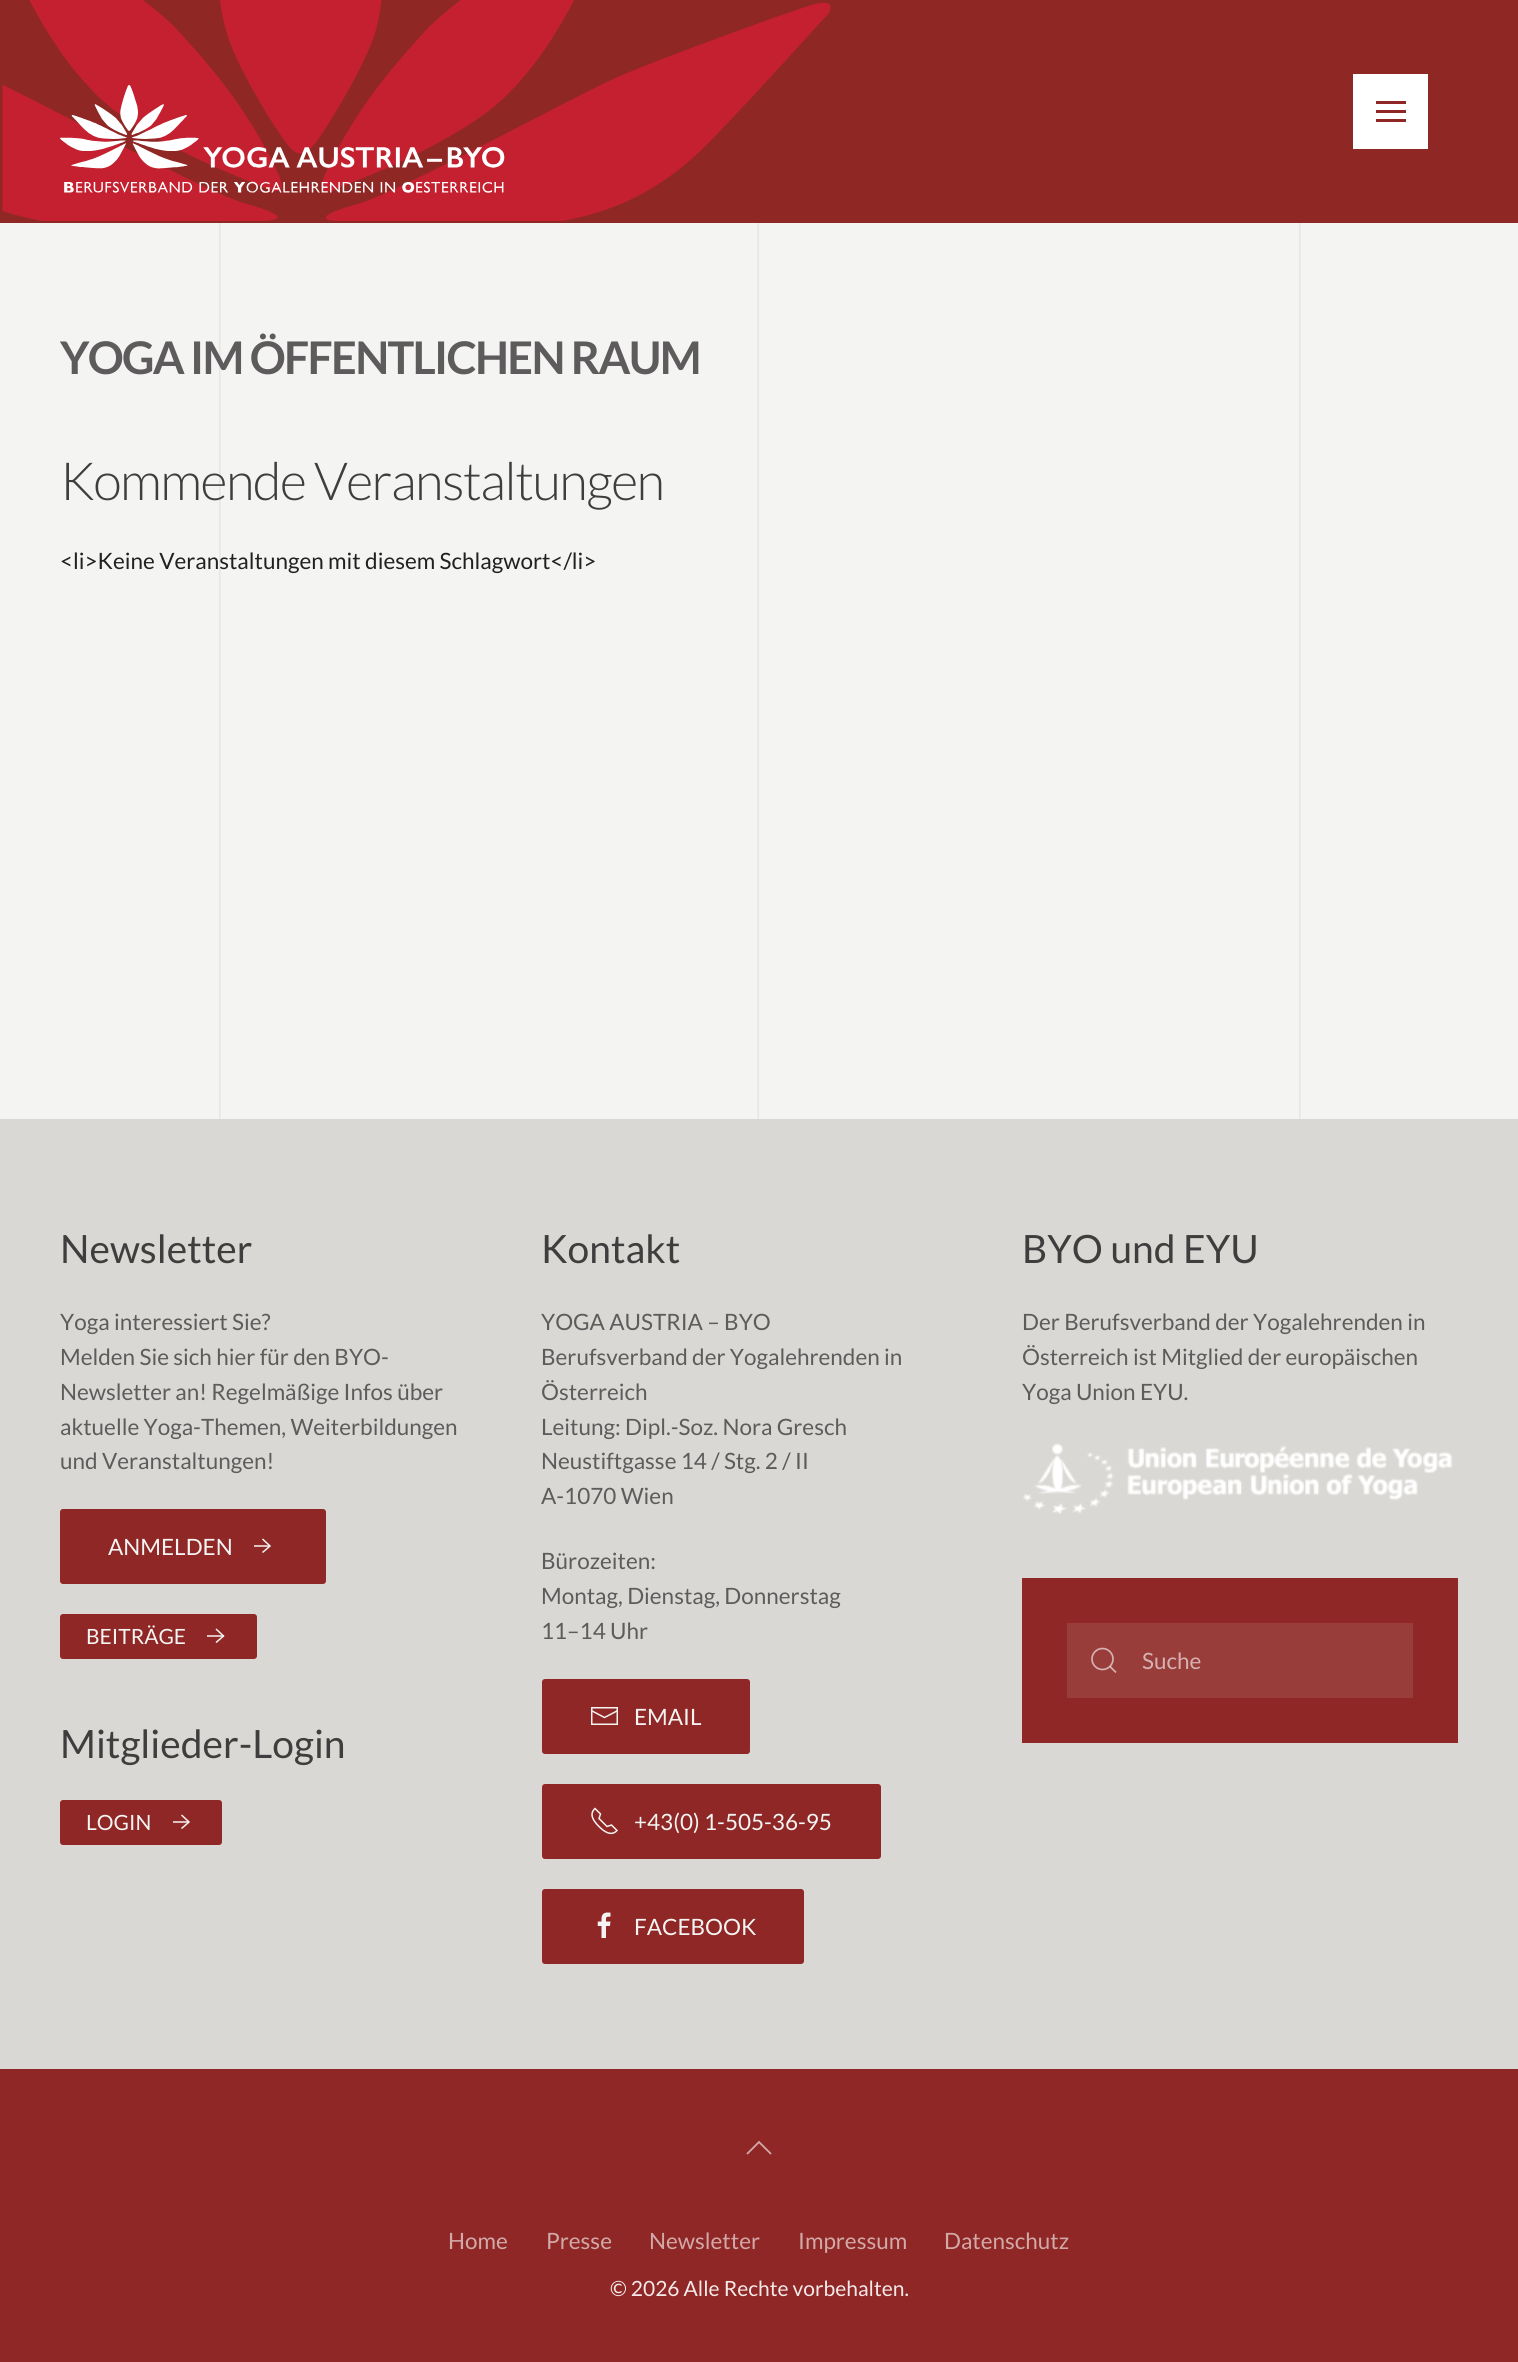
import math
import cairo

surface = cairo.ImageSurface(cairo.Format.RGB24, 1518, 2362)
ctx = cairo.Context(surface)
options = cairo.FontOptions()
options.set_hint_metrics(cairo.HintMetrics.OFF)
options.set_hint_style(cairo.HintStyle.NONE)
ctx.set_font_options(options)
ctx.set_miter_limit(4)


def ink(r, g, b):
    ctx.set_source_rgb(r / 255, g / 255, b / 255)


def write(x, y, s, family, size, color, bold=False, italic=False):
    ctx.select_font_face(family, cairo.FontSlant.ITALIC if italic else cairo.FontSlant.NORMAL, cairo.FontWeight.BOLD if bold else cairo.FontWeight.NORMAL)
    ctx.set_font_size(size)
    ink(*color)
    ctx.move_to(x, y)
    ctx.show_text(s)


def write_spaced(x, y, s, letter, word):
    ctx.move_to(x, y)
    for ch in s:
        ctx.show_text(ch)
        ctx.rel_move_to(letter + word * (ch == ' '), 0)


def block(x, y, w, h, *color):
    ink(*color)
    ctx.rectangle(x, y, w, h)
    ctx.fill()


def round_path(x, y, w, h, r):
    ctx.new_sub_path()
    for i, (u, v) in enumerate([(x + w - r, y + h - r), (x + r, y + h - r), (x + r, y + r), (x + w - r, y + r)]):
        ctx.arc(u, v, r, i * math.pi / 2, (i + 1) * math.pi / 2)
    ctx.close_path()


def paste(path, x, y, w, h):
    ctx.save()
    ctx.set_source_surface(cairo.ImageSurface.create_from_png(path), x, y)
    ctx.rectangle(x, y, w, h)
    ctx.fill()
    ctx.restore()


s1 = dict(family="Lato", size=22.5, color=(33, 33, 33))
s2 = dict(family="Lato", size=39, color=(62, 62, 62))
s3 = dict(family="Lato", size=22.5, color=(94, 91, 93))
s4 = dict(family="Lato", size=22.5, color=(244, 244, 242))
s5 = dict(family="Lato", size=21, color=(244, 244, 242))
s6 = dict(family="Lato", size=22.5, color=(214, 177, 177))
s7 = dict(family="Lato", size=22.5, color=(210, 169, 168))
s8 = dict(family="Lato", size=21, color=(244, 233, 233))

ink(244, 244, 242)
ctx.paint()
block(0, 0, 1518, 221, 143, 39, 37)
paste("pic1.png", 2, 0, 829, 221)
block(0, 221, 1518, 2, 142, 39, 37)
paste("pic2.png", 60, 85, 445, 108)
block(1353, 74, 75, 75, 255, 255, 255)
block(1376, 101, 30, 3, 142, 39, 37)
block(1376, 110, 30, 3, 142, 39, 37)
block(1376, 119, 30, 3, 142, 39, 37)
paste("pic3.png", 219, 223, 1082, 896)
ctx.select_font_face("Lato", cairo.FontSlant.NORMAL, cairo.FontWeight.BOLD)
ctx.set_font_size(45)
ink(94, 91, 93)
write_spaced(60, 374, "YOGA IM ÖFFENTLICHEN RAUM", -1.7, 0)
ctx.select_font_face("Lato Light")
ctx.set_font_size(52.5)
ink(62, 62, 62)
write_spaced(60, 500, "Kommende Veranstaltungen", -1.5, 0)
write(60, 569, "<li>Keine Veranstaltungen mit diesem Schlagwort</li>", **s1)
block(0, 1119, 1518, 950, 218, 216, 212)
write(60, 1263, "Newsletter", **s2)
write(60, 1330, "Yoga interessiert Sie?", **s3)
write(60, 1365, "Melden Sie sich hier für den BYO-", **s3)
write(60, 1400, "Newsletter an! Regelmäßige Infos über", **s3)
write(60, 1435, "aktuelle Yoga-Themen, Weiterbildungen", **s3)
write(60, 1469, "und Veranstaltungen!", **s3)
ink(142, 39, 37)
round_path(60, 1509, 266, 75, 3)
ctx.fill()
write(108, 1555, "ANMELDEN", **s4)
ctx.new_path()
ctx.move_to(262.5, 1539)
ctx.line_to(270, 1546)
ctx.line_to(262.5, 1552.5)
ctx.set_line_width(1.5)
ctx.stroke()
ctx.set_source_rgba(0.957, 0.957, 0.949, 0.75)
ctx.rectangle(254, 1545, 16, 2)
ctx.fill()
ink(142, 39, 37)
round_path(60, 1614, 197, 45, 3)
ctx.fill()
write(86, 1644, "BEITRÄGE", **s5)
ctx.new_path()
ctx.move_to(216, 1629)
ctx.line_to(223.5, 1636)
ctx.line_to(216, 1642.5)
ctx.stroke()
ctx.set_source_rgba(0.957, 0.957, 0.949, 0.75)
ctx.rectangle(207, 1635, 17, 2)
ctx.fill()
write(60, 1758, "Mitglieder-Login", **s2)
ink(142, 39, 37)
round_path(60, 1800, 162, 45, 3)
ctx.fill()
write(86, 1830, "LOGIN", **s5)
ctx.new_path()
ctx.move_to(181.5, 1815)
ctx.line_to(189, 1822)
ctx.line_to(181.5, 1828.5)
ctx.stroke()
ctx.set_source_rgba(0.957, 0.957, 0.949, 0.75)
ctx.rectangle(173, 1821, 16, 2)
ctx.fill()
write(541, 1263, "Kontakt", **s2)
write(541, 1330, "YOGA AUSTRIA – BYO", **s3)
write(541, 1365, "Berufsverband der Yogalehrenden in", **s3)
write(541, 1400, "Österreich", **s3)
write(541, 1435, "Leitung: Dipl.-Soz. Nora Gresch", **s3)
write(541, 1469, "Neustiftgasse 14 / Stg. 2 / II", **s3)
write(541, 1504, "A-1070 Wien", **s3)
write(541, 1569, "Bürozeiten:", **s3)
write(541, 1604, "Montag, Dienstag, Donnerstag", **s3)
write(541, 1639, "11–14 Uhr", **s3)
ink(142, 39, 37)
round_path(542, 1679, 208, 75, 3)
ctx.fill()
paste("pic4.png", 591, 1707, 27, 18)
write(634, 1725, "EMAIL", **s4)
ink(142, 39, 37)
round_path(542, 1784, 339, 75, 3)
ctx.fill()
ctx.new_path()
ctx.move_to(599, 1826.5)
ctx.curve_to(603.5, 1831, 611, 1837, 617, 1830.5)
ctx.line_to(611.5, 1825)
ctx.line_to(607, 1826.5)
ctx.line_to(599, 1818.5)
ctx.line_to(600.5, 1814)
ctx.line_to(595, 1808.5)
ctx.curve_to(588.5, 1814.5, 594, 1821.5, 599, 1826.5)
ink(244, 244, 242)
ctx.stroke()
write(634, 1830, "+43(0) 1-505-36-95", **s4)
ink(142, 39, 37)
round_path(542, 1889, 262, 75, 3)
ctx.fill()
paste("pic5.png", 597, 1912, 14, 26)
write(634, 1935, "FACEBOOK", **s4)
write(1022, 1263, "BYO und EYU", **s2)
write(1022, 1330, "Der Berufsverband der Yogalehrenden in", **s3)
write(1022, 1365, "Österreich ist Mitglied der europäischen", **s3)
write(1022, 1400, "Yoga Union EYU.", **s3)
paste("pic6.png", 1023, 1443, 430, 71)
block(1022, 1578, 436, 165, 142, 39, 37)
block(1067, 1623, 346, 75, 153, 61, 59)
ctx.arc(1102.5, 1659, 10.5, 0, 2 * math.pi)
ink(214, 177, 177)
ctx.set_line_width(1.7)
ctx.stroke()
ctx.new_path()
ctx.move_to(1110, 1666.5)
ctx.line_to(1116, 1672.5)
ctx.close_path()
ctx.set_source_rgba(1, 1, 1, 0.6)
ctx.stroke()
write(1142, 1669, "Suche", **s6)
block(0, 2069, 1518, 293, 142, 39, 37)
ctx.new_path()
ctx.move_to(747, 2154)
ctx.line_to(759, 2142)
ctx.line_to(771, 2154)
ink(210, 169, 168)
ctx.set_line_width(1.8)
ctx.stroke()
write(448, 2249, "Home", **s7)
write(546, 2249, "Presse", **s7)
write(649, 2249, "Newsletter", **s7)
write(798, 2249, "Impressum", **s7)
write(944, 2249, "Datenschutz", **s7)
write(610, 2296, "© 2026 Alle Rechte vorbehalten.", **s8)
surface.write_to_png("screenshot.png")
